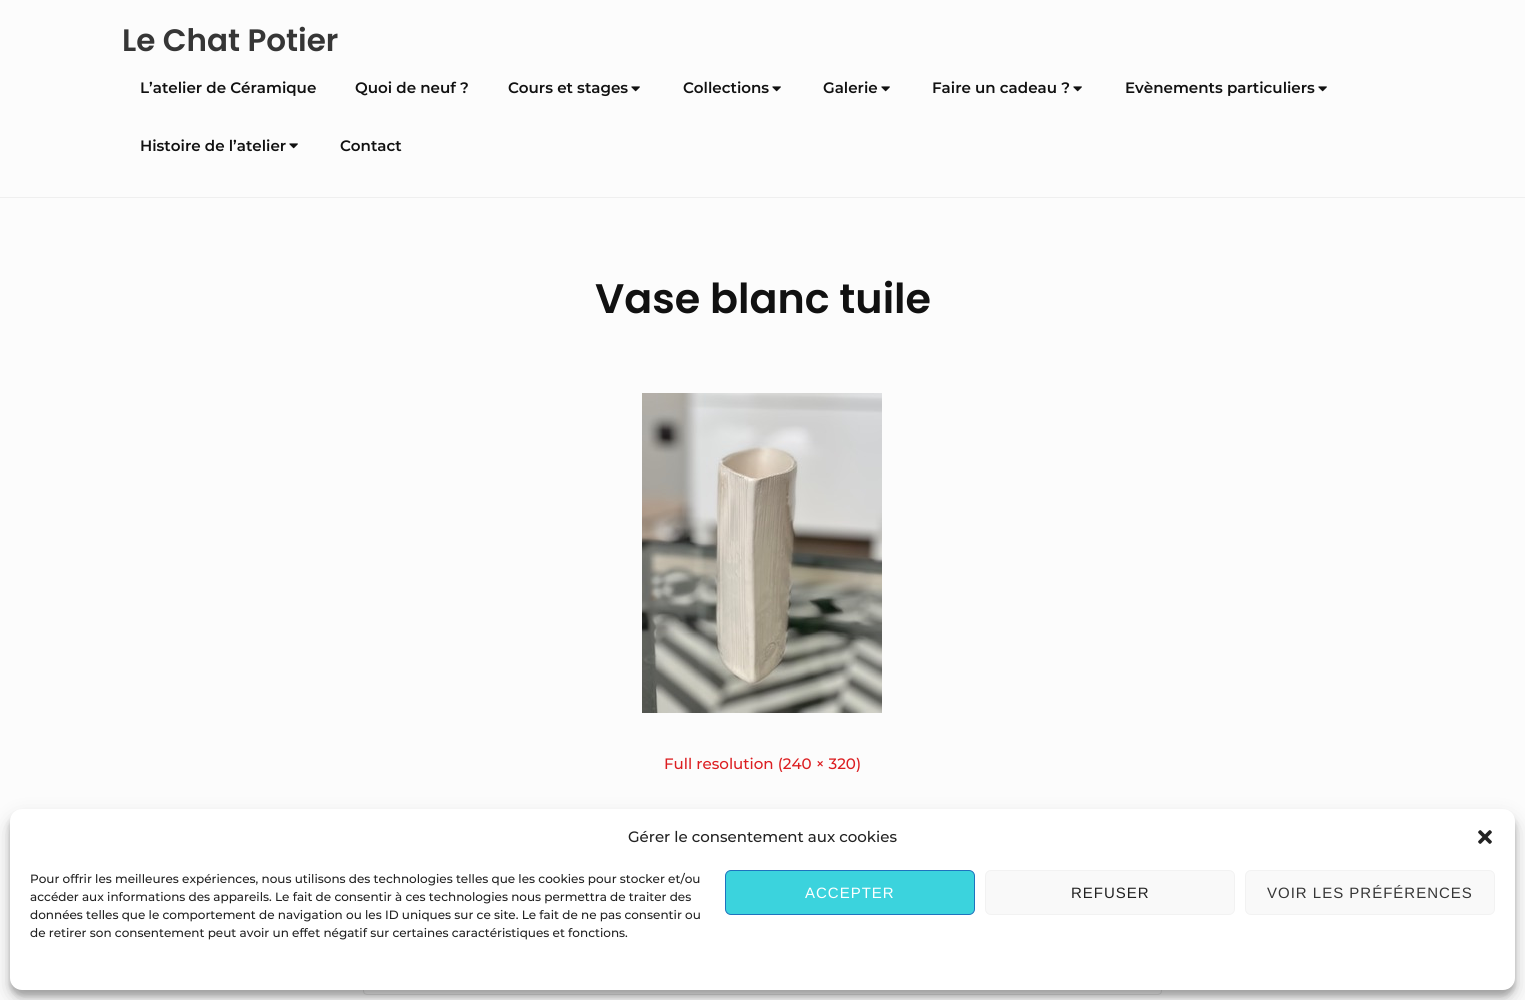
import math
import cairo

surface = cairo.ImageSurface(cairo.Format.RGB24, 1525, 1000)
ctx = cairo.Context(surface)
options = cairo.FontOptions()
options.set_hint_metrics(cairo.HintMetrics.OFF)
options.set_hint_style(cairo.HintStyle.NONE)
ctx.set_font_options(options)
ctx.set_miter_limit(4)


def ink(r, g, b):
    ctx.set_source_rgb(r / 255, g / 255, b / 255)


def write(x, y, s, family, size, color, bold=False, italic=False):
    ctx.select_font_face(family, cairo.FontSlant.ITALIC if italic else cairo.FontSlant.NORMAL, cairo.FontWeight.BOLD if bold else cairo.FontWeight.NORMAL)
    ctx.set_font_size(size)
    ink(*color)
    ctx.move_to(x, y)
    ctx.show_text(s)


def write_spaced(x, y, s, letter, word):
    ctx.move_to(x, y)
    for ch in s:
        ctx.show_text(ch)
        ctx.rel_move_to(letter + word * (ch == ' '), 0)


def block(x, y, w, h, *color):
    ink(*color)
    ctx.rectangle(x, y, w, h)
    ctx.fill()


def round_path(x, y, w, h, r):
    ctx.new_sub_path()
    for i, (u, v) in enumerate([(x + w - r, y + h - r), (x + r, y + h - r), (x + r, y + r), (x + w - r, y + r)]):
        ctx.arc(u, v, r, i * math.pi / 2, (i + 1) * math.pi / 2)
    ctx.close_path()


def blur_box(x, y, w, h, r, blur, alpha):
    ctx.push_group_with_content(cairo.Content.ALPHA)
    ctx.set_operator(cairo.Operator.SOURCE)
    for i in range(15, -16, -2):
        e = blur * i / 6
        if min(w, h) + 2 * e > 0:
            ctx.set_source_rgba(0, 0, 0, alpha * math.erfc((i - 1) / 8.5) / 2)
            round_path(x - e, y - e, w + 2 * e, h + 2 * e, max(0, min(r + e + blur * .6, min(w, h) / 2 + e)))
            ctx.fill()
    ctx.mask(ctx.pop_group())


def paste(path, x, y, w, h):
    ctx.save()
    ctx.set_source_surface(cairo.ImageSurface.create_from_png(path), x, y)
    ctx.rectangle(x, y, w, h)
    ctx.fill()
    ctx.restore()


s1 = dict(family="Poppins SemiBold", size=31, color=(54, 54, 54))
s2 = dict(family="Montserrat SemiBold", size=15.1, color=(17, 17, 17))
s3 = dict(family="Poppins SemiBold", size=41.25, color=(17, 17, 17))
s4 = dict(family="Montserrat Medium", size=15.1, color=(220, 30, 33))
s5 = dict(family="Montserrat Medium", size=15, color=(34, 34, 34))
s6 = dict(family="Montserrat Medium", size=12, color=(34, 34, 34))

ink(252, 252, 252)
ctx.paint()
block(0, 197, 1525, 1, 239, 239, 239)
write(122, 51, "Le Chat Potier", **s1)
write(140, 93, "L’atelier de Céramique", **s2)
write(355, 93, "Quoi de neuf ?", **s2)
write(508, 93, "Cours et stages", **s2)
paste("pic1.png", 631, 86, 9, 6)
write(683, 93, "Collections", **s2)
paste("pic1.png", 772, 86, 9, 6)
write(823, 93, "Galerie", **s2)
paste("pic1.png", 881, 86, 9, 6)
write(932, 93, "Faire un cadeau ?", **s2)
paste("pic1.png", 1073, 86, 9, 6)
write(1125, 93, "Evènements particuliers", **s2)
paste("pic1.png", 1318, 86, 9, 6)
write(140, 151, "Histoire de l’atelier", **s2)
paste("pic1.png", 289, 143, 9, 6)
write(340, 151, "Contact", **s2)
write(595, 313, "Vase blanc tuile", **s3)
paste("pic2.png", 642, 393, 240, 320)
write(664, 769, "Full resolution (240 × 320)", **s4)
round_path(363.5, 935.5, 798, 59, 3.5)
ink(230, 230, 230)
ctx.set_line_width(1)
ctx.stroke()
ink(0, 0, 0)
blur_box(10, 815, 1505, 181, 12, 3, 0.23)
blur_box(10, 819, 1505, 181, 12, 10, 0.19)
ink(255, 255, 255)
round_path(10, 809, 1505, 181, 12)
ctx.fill()
write(628, 842, "Gérer le consentement aux cookies", **s5)
paste("pic3.png", 1478, 830, 14, 14)
write(30, 883, "Pour offrir les meilleures expériences, nous utilisons des technologies telles que les cookies pour stocker et/ou", **s6)
write(30, 901, "accéder aux informations des appareils. Le fait de consentir à ces technologies nous permettra de traiter des", **s6)
write(30, 919, "données telles que le comportement de navigation ou les ID uniques sur ce site. Le fait de ne pas consentir ou", **s6)
write(30, 937, "de retirer son consentement peut avoir un effet négatif sur certaines caractéristiques et fonctions.", **s6)
ink(59, 211, 221)
round_path(725.5, 870.5, 249, 44, 5.5)
ctx.fill_preserve()
ink(30, 115, 190)
ctx.stroke()
ctx.select_font_face("Liberation Sans")
ctx.set_font_size(15)
ink(255, 255, 255)
write_spaced(805, 898, "ACCEPTER", 1, 0)
ink(249, 249, 249)
round_path(985.5, 870.5, 249, 44, 5.5)
ctx.fill_preserve()
ink(242, 242, 242)
ctx.stroke()
ink(34, 34, 34)
write_spaced(1071, 898, "REFUSER", 1, 0)
ink(249, 249, 249)
round_path(1245.5, 870.5, 249, 44, 5.5)
ctx.fill_preserve()
ink(242, 242, 242)
ctx.stroke()
ink(54, 54, 54)
write_spaced(1267, 898, "VOIR LES PRÉFÉRENCES", 1, 0)
surface.write_to_png("screenshot.png")
